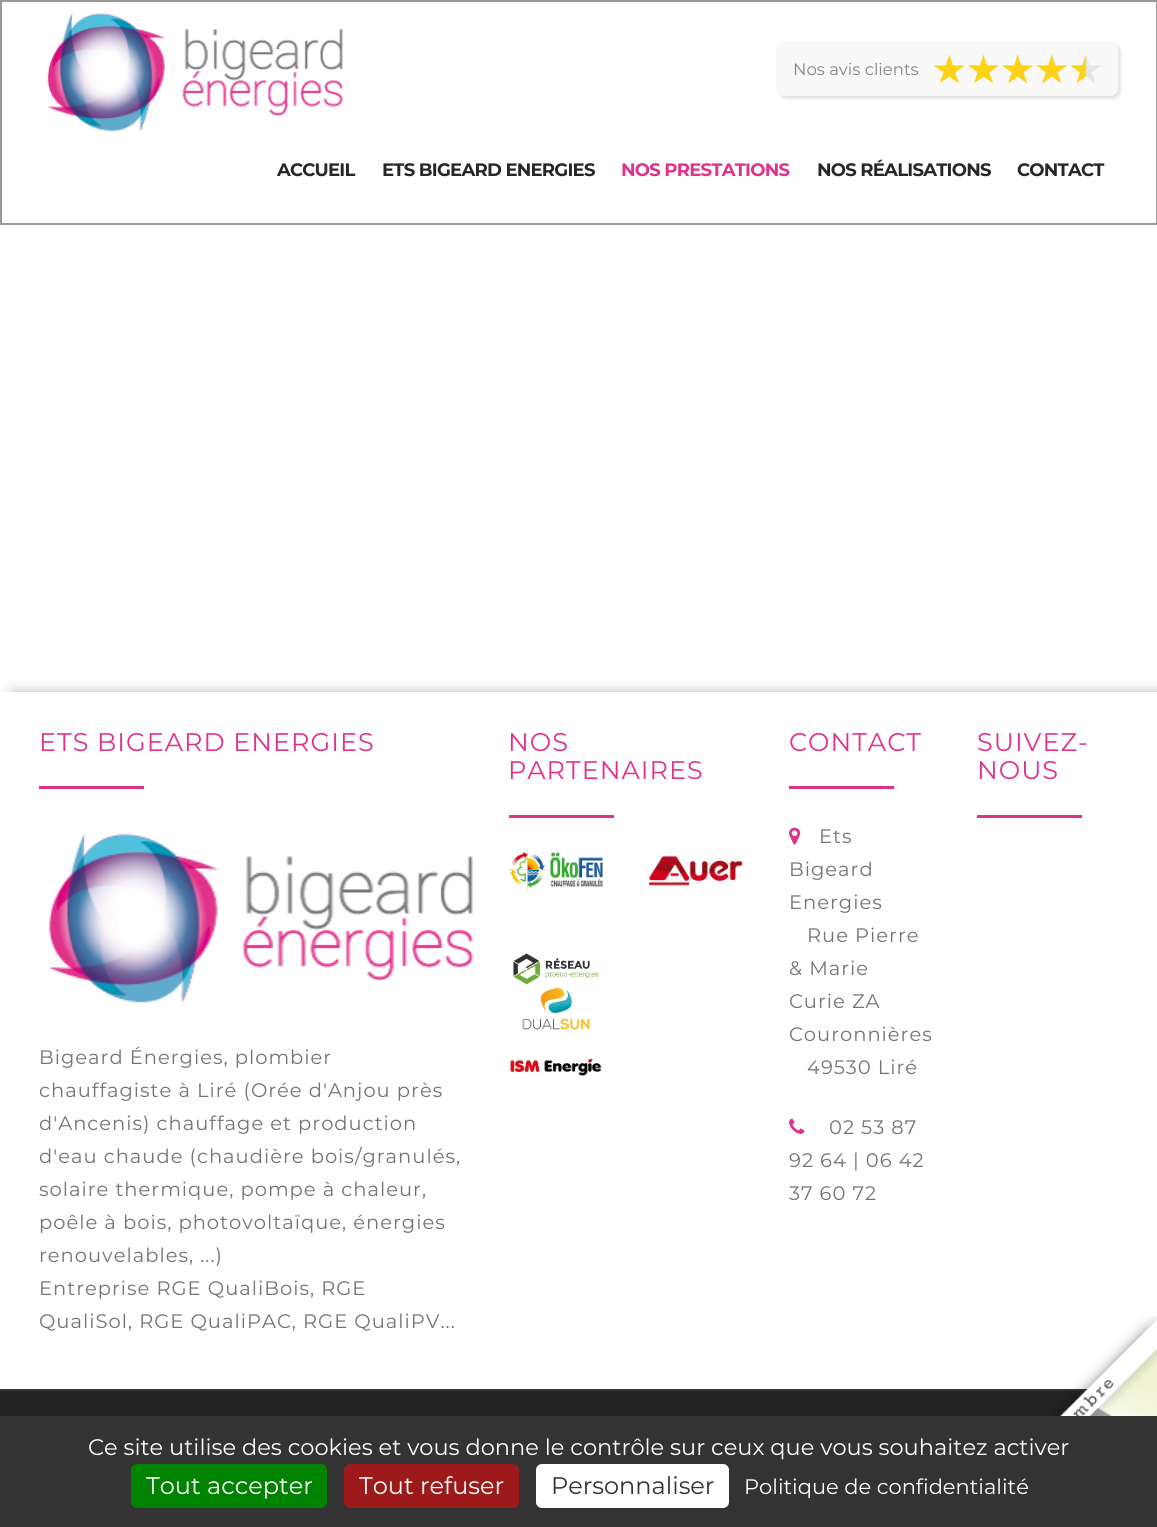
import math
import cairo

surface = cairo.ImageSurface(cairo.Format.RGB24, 1157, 1527)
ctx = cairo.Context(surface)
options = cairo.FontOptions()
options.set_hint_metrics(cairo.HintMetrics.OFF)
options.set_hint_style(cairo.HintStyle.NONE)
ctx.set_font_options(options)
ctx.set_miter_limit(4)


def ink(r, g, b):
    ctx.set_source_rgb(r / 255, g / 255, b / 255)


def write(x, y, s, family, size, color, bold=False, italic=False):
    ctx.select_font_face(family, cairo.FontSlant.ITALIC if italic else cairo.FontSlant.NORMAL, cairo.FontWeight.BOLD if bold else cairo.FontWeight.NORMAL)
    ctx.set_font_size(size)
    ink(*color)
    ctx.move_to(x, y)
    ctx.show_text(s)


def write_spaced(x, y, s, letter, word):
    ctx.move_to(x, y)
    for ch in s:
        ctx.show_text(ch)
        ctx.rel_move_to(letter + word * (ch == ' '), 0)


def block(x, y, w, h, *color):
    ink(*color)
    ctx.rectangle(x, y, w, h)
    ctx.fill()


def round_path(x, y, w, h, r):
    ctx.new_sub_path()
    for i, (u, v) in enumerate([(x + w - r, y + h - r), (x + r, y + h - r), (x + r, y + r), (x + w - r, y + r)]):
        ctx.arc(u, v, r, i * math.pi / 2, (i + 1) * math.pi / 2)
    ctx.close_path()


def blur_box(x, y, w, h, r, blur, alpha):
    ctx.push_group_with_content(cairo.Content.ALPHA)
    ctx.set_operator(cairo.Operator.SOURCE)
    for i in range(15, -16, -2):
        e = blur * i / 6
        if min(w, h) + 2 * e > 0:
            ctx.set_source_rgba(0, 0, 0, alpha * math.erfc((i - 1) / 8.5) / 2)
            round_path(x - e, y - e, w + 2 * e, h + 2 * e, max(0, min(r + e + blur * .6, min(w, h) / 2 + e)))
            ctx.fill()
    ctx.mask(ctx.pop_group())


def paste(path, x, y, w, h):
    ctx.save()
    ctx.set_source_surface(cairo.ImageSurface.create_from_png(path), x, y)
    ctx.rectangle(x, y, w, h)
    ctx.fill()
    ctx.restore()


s1 = dict(family="Montserrat", size=16.5, color=(133, 133, 133))
s2 = dict(family="Montserrat", size=22.5, color=(255, 255, 255))
s3 = dict(family="Montserrat", size=24, color=(255, 255, 255))
s4 = dict(family="Montserrat", size=24, color=(51, 51, 51))
s5 = dict(family="Montserrat", size=21, color=(255, 255, 255))

ink(255, 255, 255)
ctx.paint()
ctx.rectangle(1, 1, 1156, 223)
ink(153, 153, 153)
ctx.stroke()
paste("pic1.png", 47, 13, 296, 119)
ink(157, 136, 136)
blur_box(779, 44, 342, 55, 8, 1.5, 0.24)
ink(249, 249, 249)
round_path(776, 41, 342, 55, 8)
ctx.fill()
write(793, 75, "Nos avis clients", **s1)
paste("pic2.png", 933, 54, 168, 30)
ctx.select_font_face("Montserrat", cairo.FontSlant.NORMAL, cairo.FontWeight.BOLD)
ctx.set_font_size(18)
ink(39, 39, 39)
write_spaced(277, 176, "ACCUEIL", -0.75, 0)
write_spaced(382, 176, "ETS BIGEARD ENERGIES", -0.75, 0)
ink(224, 50, 139)
write_spaced(621, 176, "NOS PRESTATIONS", -0.75, 0)
ink(39, 39, 39)
write_spaced(817, 176, "NOS RÉALISATIONS", -0.75, 0)
write_spaced(1017, 176, "CONTACT", -0.75, 0)
ctx.save()
ctx.rectangle(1, 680, 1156, 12)
ctx.clip()
ink(144, 153, 155)
blur_box(12, 695, 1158, 697, 0, 7.5, 1)
ctx.restore()
ctx.select_font_face("Montserrat")
ctx.set_font_size(25.5)
ink(224, 50, 139)
write_spaced(39, 751, "ETS BIGEARD ENERGIES", 1, 0)
block(39, 786, 105, 3, 224, 50, 139)
paste("pic3.png", 49, 833, 424, 170)
ctx.set_font_size(19.5)
ink(117, 115, 116)
write_spaced(39, 1064, "Bigeard Énergies, plombier", 1, 0)
write_spaced(39, 1097, "chauffagiste à Liré (Orée d'Anjou près", 1, 0)
write_spaced(39, 1130, "d'Ancenis) chauffage et production", 1, 0)
write_spaced(39, 1163, "d'eau chaude (chaudière bois/granulés,", 1, 0)
write_spaced(39, 1196, "solaire thermique, pompe à chaleur,", 1, 0)
write_spaced(39, 1229, "poêle à bois, photovoltaïque, énergies", 1, 0)
write_spaced(39, 1262, "renouvelables, ...)", 1, 0)
write_spaced(39, 1295, "Entreprise RGE QualiBois, RGE", 1, 0)
write_spaced(39, 1328, "QualiSol, RGE QualiPAC, RGE QualiPV...", 1, 0)
ctx.set_font_size(25.5)
ink(224, 50, 139)
write_spaced(508, 751, "NOS", 1, 0)
write_spaced(508, 779, "PARTENAIRES", 1, 0)
block(509, 815, 105, 3, 224, 50, 139)
paste("pic4.png", 508, 849, 95, 43)
paste("pic5.png", 648, 854, 96, 36)
paste("pic6.png", 513, 953, 86, 32)
paste("pic7.png", 522, 987, 68, 43)
paste("pic8.png", 510, 1058, 92, 18)
write_spaced(789, 751, "CONTACT", 1, 0)
block(789, 786, 105, 3, 224, 50, 139)
paste("pic9.png", 789, 827, 12, 18)
ctx.set_font_size(19.5)
ink(117, 115, 116)
write_spaced(819, 843, "Ets", 1, 0)
write_spaced(789, 876, "Bigeard", 1, 0)
write_spaced(789, 909, "Energies", 1, 0)
write_spaced(807, 942, "Rue Pierre", 1, 0)
write_spaced(789, 975, "& Marie", 1, 0)
write_spaced(789, 1008, "Curie ZA", 1, 0)
write_spaced(789, 1041, "Couronnières", 1, 0)
write_spaced(807, 1074, "49530 Liré", 1, 0)
paste("pic10.png", 789, 1118, 16, 16)
write_spaced(829, 1134, "02 53 87", 1, 0)
write_spaced(789, 1167, "92 64 | 06 42", 1, 0)
write_spaced(789, 1200, "37 60 72", 1, 0)
ctx.set_font_size(25.5)
ink(224, 50, 139)
write_spaced(977, 751, "SUIVEZ-", 1, 0)
write_spaced(977, 779, "NOUS", 1, 0)
block(977, 815, 105, 3, 224, 50, 139)
block(0, 1391, 1087, 25, 34, 34, 34)
block(0, 1389, 1089, 2, 51, 51, 51)
paste("pic11.png", 1046, 1316, 111, 100)
block(0, 1416, 1157, 111, 51, 51, 51)
write(88, 1455, "Ce site utilise des cookies et vous donne le contrôle sur ceux que vous souhaitez activer", **s2)
ink(0, 131, 0)
round_path(131, 1464, 196, 44, 6)
ctx.fill()
write(146, 1494, "Tout accepter", **s3)
ink(156, 26, 26)
round_path(344, 1464, 175, 44, 6)
ctx.fill()
write(359, 1494, "Tout refuser", **s3)
round_path(536, 1464, 193, 44, 6)
ctx.fill()
write(551, 1494, "Personnaliser", **s4)
write(744, 1494, "Politique de confidentialité", **s5)
surface.write_to_png("screenshot.png")
